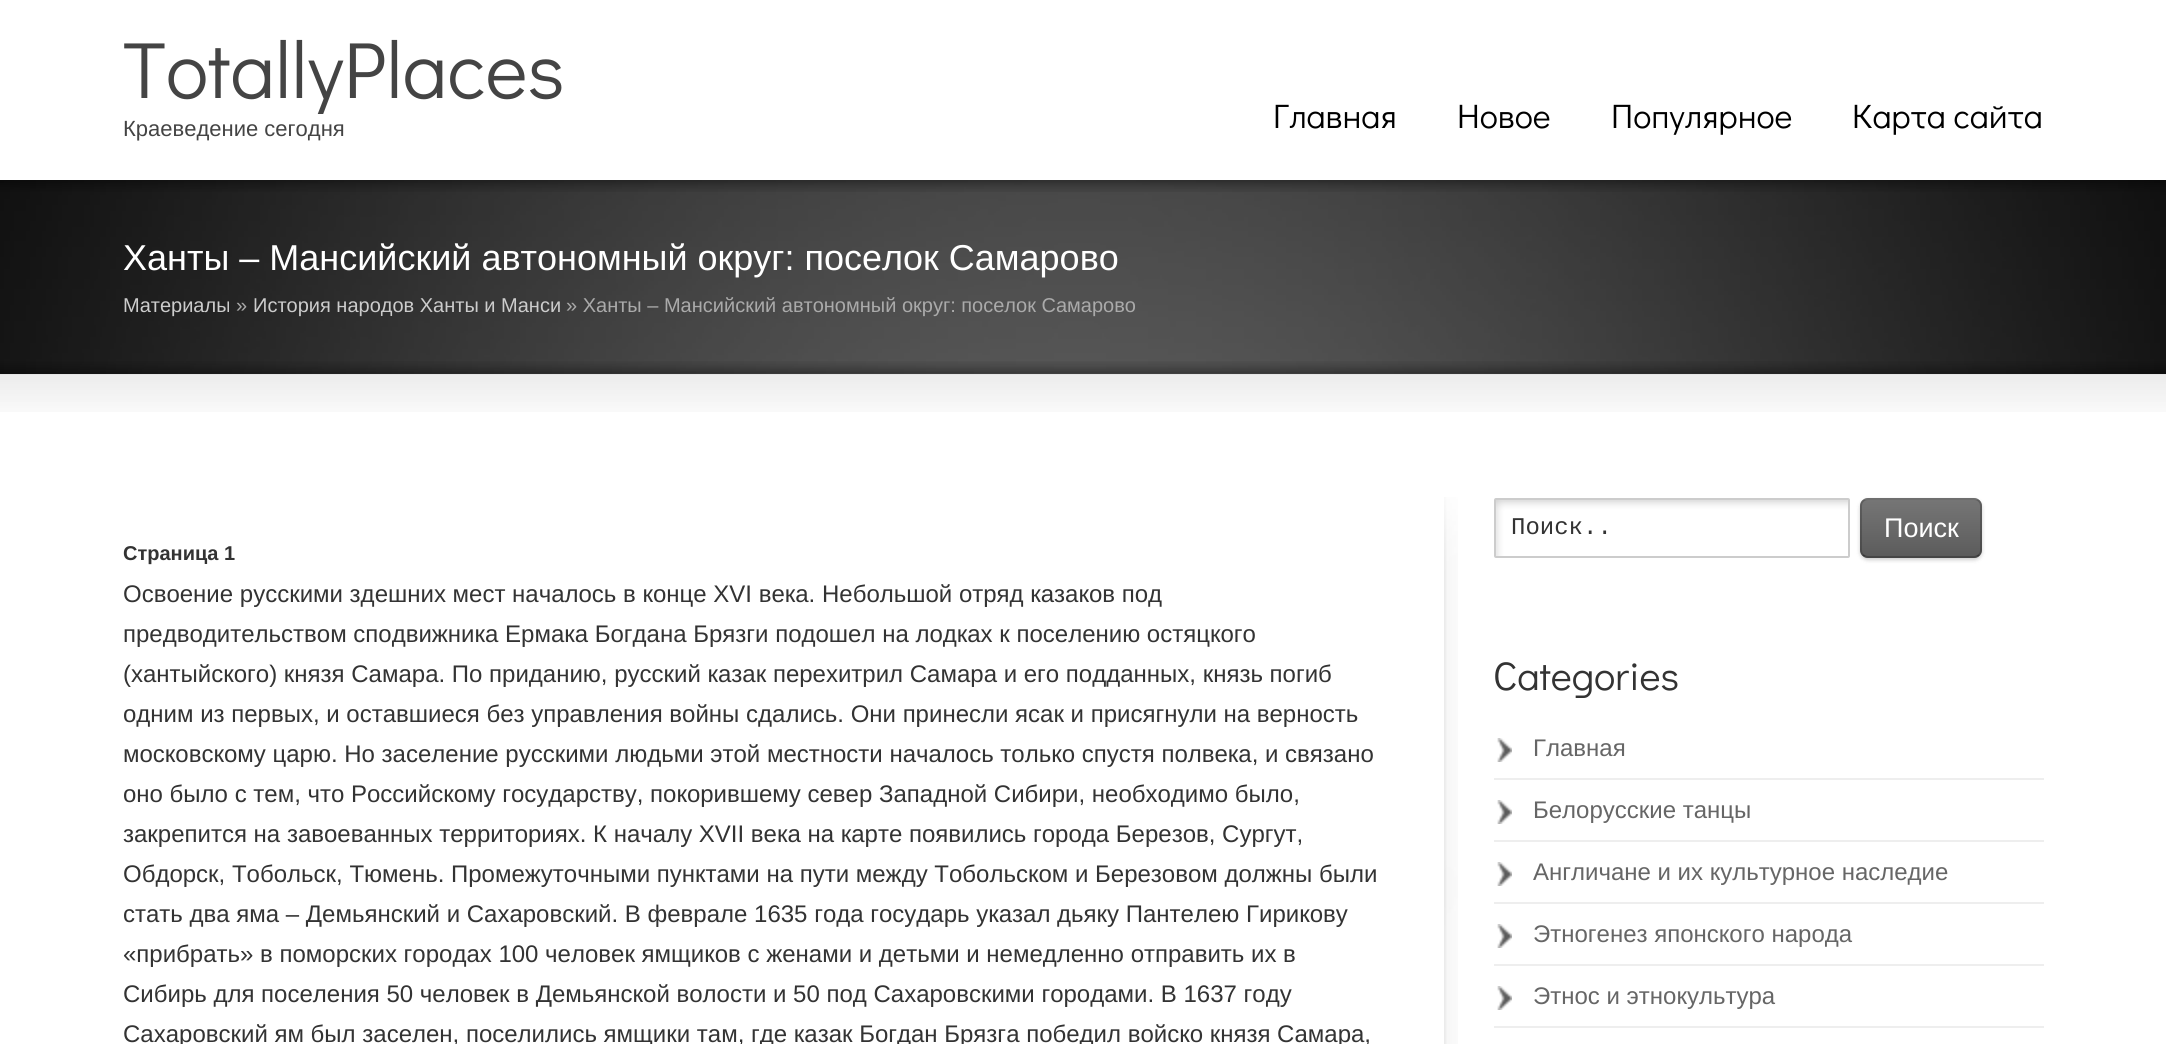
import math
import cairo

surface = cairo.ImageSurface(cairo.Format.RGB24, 2166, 1044)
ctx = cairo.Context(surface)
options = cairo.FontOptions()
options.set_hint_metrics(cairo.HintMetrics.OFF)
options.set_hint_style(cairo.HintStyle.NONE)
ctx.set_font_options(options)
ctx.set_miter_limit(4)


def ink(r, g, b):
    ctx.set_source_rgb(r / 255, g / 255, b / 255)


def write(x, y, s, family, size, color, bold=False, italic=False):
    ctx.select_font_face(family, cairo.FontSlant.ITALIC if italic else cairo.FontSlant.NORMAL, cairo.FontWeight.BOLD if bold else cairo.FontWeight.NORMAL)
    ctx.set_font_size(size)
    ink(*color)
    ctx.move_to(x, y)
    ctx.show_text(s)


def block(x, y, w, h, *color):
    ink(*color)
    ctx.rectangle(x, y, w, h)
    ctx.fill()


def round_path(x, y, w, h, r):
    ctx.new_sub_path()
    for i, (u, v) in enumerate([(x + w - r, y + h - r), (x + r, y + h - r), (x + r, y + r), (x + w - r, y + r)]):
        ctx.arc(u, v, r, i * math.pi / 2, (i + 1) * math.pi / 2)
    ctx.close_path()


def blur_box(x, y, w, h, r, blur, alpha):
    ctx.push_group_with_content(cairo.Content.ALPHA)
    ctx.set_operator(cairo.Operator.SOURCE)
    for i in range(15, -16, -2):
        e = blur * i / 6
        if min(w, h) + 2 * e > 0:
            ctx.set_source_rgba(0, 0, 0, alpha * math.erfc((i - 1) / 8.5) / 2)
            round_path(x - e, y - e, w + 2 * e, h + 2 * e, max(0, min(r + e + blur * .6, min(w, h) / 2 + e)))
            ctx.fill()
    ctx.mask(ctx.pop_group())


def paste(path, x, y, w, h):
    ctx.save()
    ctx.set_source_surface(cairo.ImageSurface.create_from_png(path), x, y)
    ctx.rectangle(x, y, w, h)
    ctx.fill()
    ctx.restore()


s1 = dict(family="Didact Gothic", size=80, color=(68, 68, 68))
s2 = dict(family="Liberation Sans", size=22, color=(68, 68, 68))
s3 = dict(family="Didact Gothic", size=34, color=(0, 0, 0))
s4 = dict(family="Liberation Sans", size=36, color=(255, 255, 255))
s5 = dict(family="Liberation Sans", size=20, color=(204, 204, 204))
s6 = dict(family="Liberation Sans", size=20, color=(170, 170, 170))
s7 = dict(family="Liberation Sans", size=20, color=(51, 51, 51), bold=True)
s8 = dict(family="Liberation Sans", size=24, color=(51, 51, 51))
s9 = dict(family="Liberation Mono", size=24, color=(51, 51, 51))
s10 = dict(family="Liberation Sans", size=27, color=(255, 255, 255))
s11 = dict(family="Didact Gothic", size=40, color=(51, 51, 51))
s12 = dict(family="Liberation Sans", size=24, color=(102, 102, 102))

ink(255, 255, 255)
ctx.paint()
write(123, 98, "TotallyPlaces", **s1)
write(123, 136, "Краеведение сегодня", **s2)
write(1273, 128, "Главная", **s3)
write(1457, 128, "Новое", **s3)
write(1611, 128, "Популярное", **s3)
write(1852, 128, "Карта сайта", **s3)
block(0, 180, 2166, 194, 0, 0, 0)
paste("pic1.png", 0, 180, 2166, 194)
paste("pic2.png", 0, 180, 2166, 12)
write(123, 270, "Ханты – Мансийский автономный округ: поселок Самарово", **s4)
write(123, 312, "Материалы", **s5)
write(236, 312, "»", **s6)
write(253, 312, "История народов Ханты и Манси", **s5)
write(566, 312, "» Ханты – Мансийский автономный округ: поселок Самарово", **s6)
paste("pic3.png", 0, 361, 2166, 13)
paste("pic4.png", 0, 374, 2166, 38)
write(123, 560, "Страница 1", **s7)
write(123, 602, "Освоение русскими здешних мест началось в конце XVI века. Небольшой отряд казаков под", **s8)
write(123, 642, "предводительством сподвижника Ермака Богдана Брязги подошел на лодках к поселению остяцкого", **s8)
write(123, 682, "(хантыйского) князя Самара. По приданию, русский казак перехитрил Самара и его подданных, князь погиб", **s8)
write(123, 722, "одним из первых, и оставшиеся без управления войны сдались. Они принесли ясак и присягнули на верность", **s8)
write(123, 762, "московскому царю. Но заселение русскими людьми этой местности началось только спустя полвека, и связано", **s8)
write(123, 802, "оно было с тем, что Российскому государству, покорившему север Западной Сибири, необходимо было,", **s8)
write(123, 842, "закрепится на завоеванных территориях. К началу XVII века на карте появились города Березов, Сургут,", **s8)
write(123, 882, "Обдорск, Тобольск, Тюмень. Промежуточными пунктами на пути между Тобольском и Березовом должны были", **s8)
write(123, 922, "стать два яма – Демьянский и Сахаровский. В феврале 1635 года государь указал дьяку Пантелею Гирикову", **s8)
write(123, 962, "«прибрать» в поморских городах 100 человек ямщиков с женами и детьми и немедленно отправить их в", **s8)
write(123, 1002, "Сибирь для поселения 50 человек в Демьянской волости и 50 под Сахаровскими городами. В 1637 году", **s8)
write(123, 1042, "Сахаровский ям был заселен, поселились ямщики там, где казак Богдан Брязга победил войско князя Самара,", **s8)
paste("pic5.png", 1444, 497, 14, 547)
paste("pic6.png", 1496, 500, 352, 56)
round_path(1495, 499, 354, 58, 1)
ink(204, 204, 204)
ctx.stroke()
write(1511, 534, "Поиск..", **s9)
ink(0, 0, 0)
blur_box(1860, 500, 122, 60, 8, 2, 0.2)
ink(102, 102, 102)
round_path(1860, 498, 122, 60, 8)
ctx.fill()
ctx.save()
round_path(1860, 498, 122, 60, 8)
ctx.clip()
gradient = cairo.LinearGradient(1921, 500, 1921, 444)
gradient.add_color_stop_rgba(0, 0, 0, 0, 0.1)
gradient.add_color_stop_rgba(1, 1, 1, 1, 0.1)
ctx.set_source(gradient)
ctx.rectangle(1860, 498, 122, 2)
ctx.fill()
gradient = cairo.LinearGradient(1921, 556, 1921, 500)
gradient.add_color_stop_rgba(0, 0, 0, 0, 0.1)
gradient.add_color_stop_rgba(1, 1, 1, 1, 0.1)
ctx.set_source(gradient)
ctx.rectangle(1860, 500, 122, 56)
ctx.fill()
gradient = cairo.LinearGradient(1921, 612, 1921, 556)
gradient.add_color_stop_rgba(0, 0, 0, 0, 0.1)
gradient.add_color_stop_rgba(1, 1, 1, 1, 0.1)
ctx.set_source(gradient)
ctx.rectangle(1860, 556, 122, 2)
ctx.fill()
ctx.restore()
ctx.new_path()
ctx.move_to(1979, 555)
ctx.curve_to(1977.5, 556.5, 1976, 557, 1974, 557)
ctx.line_to(1868, 557)
ctx.curve_to(1866, 557, 1864.5, 556.5, 1863, 555)
ctx.set_source_rgba(0, 0, 0, 0.4)
ctx.stroke()
ctx.new_path()
ctx.move_to(1863, 555)
ctx.curve_to(1861.5, 553.5, 1861, 552, 1861, 550)
ctx.line_to(1861, 506)
ctx.curve_to(1861, 504, 1861.5, 502.5, 1863, 501)
ctx.curve_to(1864.5, 499.5, 1866, 499, 1868, 499)
ctx.line_to(1974, 499)
ctx.curve_to(1976, 499, 1977.5, 499.5, 1979, 501)
ctx.curve_to(1980.5, 502.5, 1981, 504, 1981, 506)
ctx.line_to(1981, 550)
ctx.curve_to(1981, 552, 1980.5, 553.5, 1979, 555)
ctx.set_source_rgba(0, 0, 0, 0.2)
ctx.stroke()
ctx.set_source_rgba(1, 1, 1, 0.2)
ctx.rectangle(1862, 498, 118, 2)
ctx.fill()
write(1884, 537, "Поиск", **s10)
write(1493, 690, "Categories", **s11)
block(1494, 778, 550, 2, 238, 238, 238)
paste("pic7.png", 1497, 738, 15, 24)
write(1533, 756, "Главная", **s12)
block(1494, 840, 550, 2, 238, 238, 238)
paste("pic7.png", 1497, 800, 15, 24)
write(1533, 818, "Белорусские танцы", **s12)
block(1494, 902, 550, 2, 238, 238, 238)
paste("pic7.png", 1497, 862, 15, 24)
write(1533, 880, "Англичане и их культурное наследие", **s12)
block(1494, 964, 550, 2, 238, 238, 238)
paste("pic7.png", 1497, 924, 15, 24)
write(1533, 942, "Этногенез японского народа", **s12)
block(1494, 1026, 550, 2, 238, 238, 238)
paste("pic7.png", 1497, 986, 15, 24)
write(1533, 1004, "Этнос и этнокультура", **s12)
surface.write_to_png("screenshot.png")
